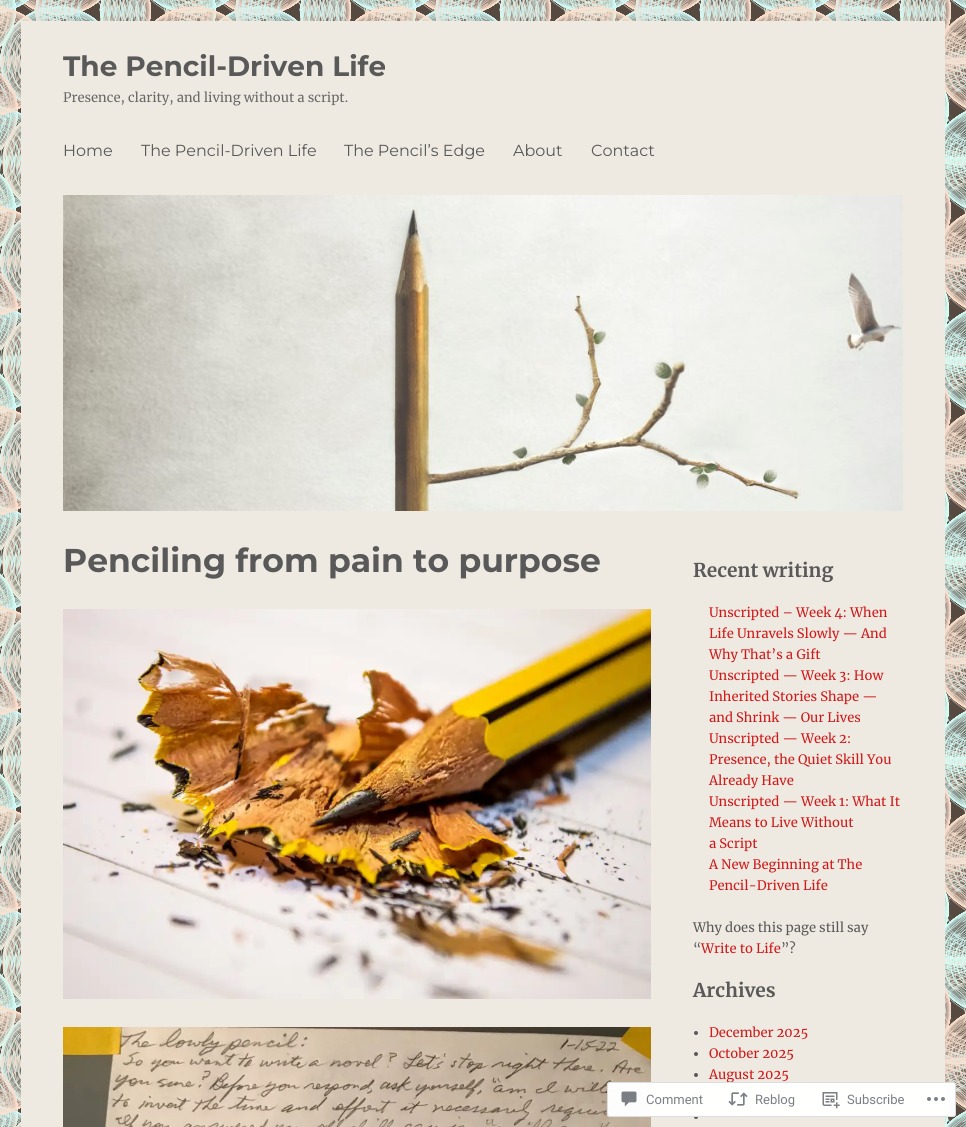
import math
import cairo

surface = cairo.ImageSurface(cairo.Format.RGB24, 966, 1127)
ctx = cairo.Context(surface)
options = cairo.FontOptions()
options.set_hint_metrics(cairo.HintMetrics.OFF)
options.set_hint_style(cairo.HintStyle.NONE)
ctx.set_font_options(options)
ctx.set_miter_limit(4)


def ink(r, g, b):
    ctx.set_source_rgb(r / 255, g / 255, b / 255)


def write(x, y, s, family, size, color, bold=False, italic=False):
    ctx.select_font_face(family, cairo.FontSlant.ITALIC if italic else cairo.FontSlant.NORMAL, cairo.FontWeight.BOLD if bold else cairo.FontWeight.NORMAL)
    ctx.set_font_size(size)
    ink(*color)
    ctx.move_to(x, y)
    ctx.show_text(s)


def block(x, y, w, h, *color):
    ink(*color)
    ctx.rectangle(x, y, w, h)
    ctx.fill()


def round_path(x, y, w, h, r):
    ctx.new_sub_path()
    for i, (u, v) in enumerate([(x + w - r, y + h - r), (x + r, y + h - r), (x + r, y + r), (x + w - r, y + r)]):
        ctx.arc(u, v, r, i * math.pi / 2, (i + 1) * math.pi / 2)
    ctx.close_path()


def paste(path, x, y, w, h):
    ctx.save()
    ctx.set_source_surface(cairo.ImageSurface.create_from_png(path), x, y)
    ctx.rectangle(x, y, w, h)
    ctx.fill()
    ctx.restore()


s1 = dict(family="Montserrat Thin", size=28, color=(89, 89, 89))
s2 = dict(family="Merriweather", size=13, color=(104, 104, 104))
s3 = dict(family="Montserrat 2 Thin", size=16, color=(89, 89, 89))
s4 = dict(family="Montserrat Thin", size=33, color=(89, 89, 89))
s5 = dict(family="Merriweather", size=19, color=(89, 89, 89), bold=True)
s6 = dict(family="Merriweather", size=13, color=(207, 26, 26))
s7 = dict(family="Merriweather", size=13, color=(89, 89, 89))
s8 = dict(family="Roboto", size=13, color=(123, 127, 132))

ink(255, 255, 255)
ctx.paint()
paste("pic1.png", 0, 0, 966, 1127)
block(21, 21, 924, 1106, 238, 233, 225)
write(63, 76, "The Pencil-Driven Life", **s1)
write(63, 102, "Presence, clarity, and living without a script.", **s2)
write(63, 156, "Home", **s3)
write(141, 156, "The Pencil-Driven Life", **s3)
write(344, 156, "The Pencil’s Edge", **s3)
write(513, 156, "About", **s3)
write(591, 156, "Contact", **s3)
paste("pic2.png", 63, 195, 840, 316)
write(63, 572, "Penciling from pain to purpose", **s4)
paste("pic3.png", 63, 609, 588, 390)
paste("pic4.png", 63, 1027, 588, 100)
write(693, 577, "Recent writing", **s5)
write(709, 617, "Unscripted – Week 4: When", **s6)
write(709, 638, "Life Unravels Slowly — And", **s6)
write(709, 659, "Why That’s a Gift", **s6)
write(709, 680, "Unscripted — Week 3: How", **s6)
write(709, 701, "Inherited Stories Shape —", **s6)
write(709, 722, "and Shrink — Our Lives", **s6)
write(709, 743, "Unscripted — Week 2:", **s6)
write(709, 764, "Presence, the Quiet Skill You", **s6)
write(709, 785, "Already Have", **s6)
write(709, 806, "Unscripted — Week 1: What It", **s6)
write(709, 827, "Means to Live Without", **s6)
write(709, 848, "a Script", **s6)
write(709, 869, "A New Beginning at The", **s6)
write(709, 890, "Pencil-Driven Life", **s6)
write(693, 932, "Why does this page still say", **s7)
write(693, 953, "“", **s7)
write(701, 953, "Write to Life", **s6)
write(781, 953, "”?", **s7)
write(693, 997, "Archives", **s5)
ctx.new_path()
ctx.arc(696, 1033, 2, 0, 2 * math.pi)
ctx.fill()
write(709, 1037, "December 2025", **s6)
ink(89, 89, 89)
ctx.new_path()
ctx.arc(696, 1054, 2, 0, 2 * math.pi)
ctx.fill()
write(709, 1058, "October 2025", **s6)
ink(89, 89, 89)
ctx.new_path()
ctx.arc(696, 1075, 2, 0, 2 * math.pi)
ctx.fill()
write(709, 1079, "August 2025", **s6)
ink(89, 89, 89)
ctx.new_path()
ctx.arc(696, 1096, 2, 0, 2 * math.pi)
ctx.fill()
ctx.arc(696, 1117, 2, 0, 2 * math.pi)
ctx.fill()
ctx.set_source_rgba(1, 1, 1, 0.98)
round_path(607, 1082, 349, 35, 3)
ctx.fill()
round_path(607.5, 1082.5, 348, 34, 2.5)
ctx.set_source_rgba(0.863, 0.863, 0.871, 0.98)
ctx.set_line_width(1)
ctx.stroke()
paste("pic5.png", 621, 1091, 16, 16)
write(646, 1104, "Comment", **s8)
paste("pic6.png", 728, 1092, 20, 14)
write(755, 1104, "Reblog", **s8)
paste("pic7.png", 822, 1092, 18, 17)
write(847, 1104, "Subscribe", **s8)
paste("pic8.png", 927, 1097, 18, 4)
surface.write_to_png("screenshot.png")
